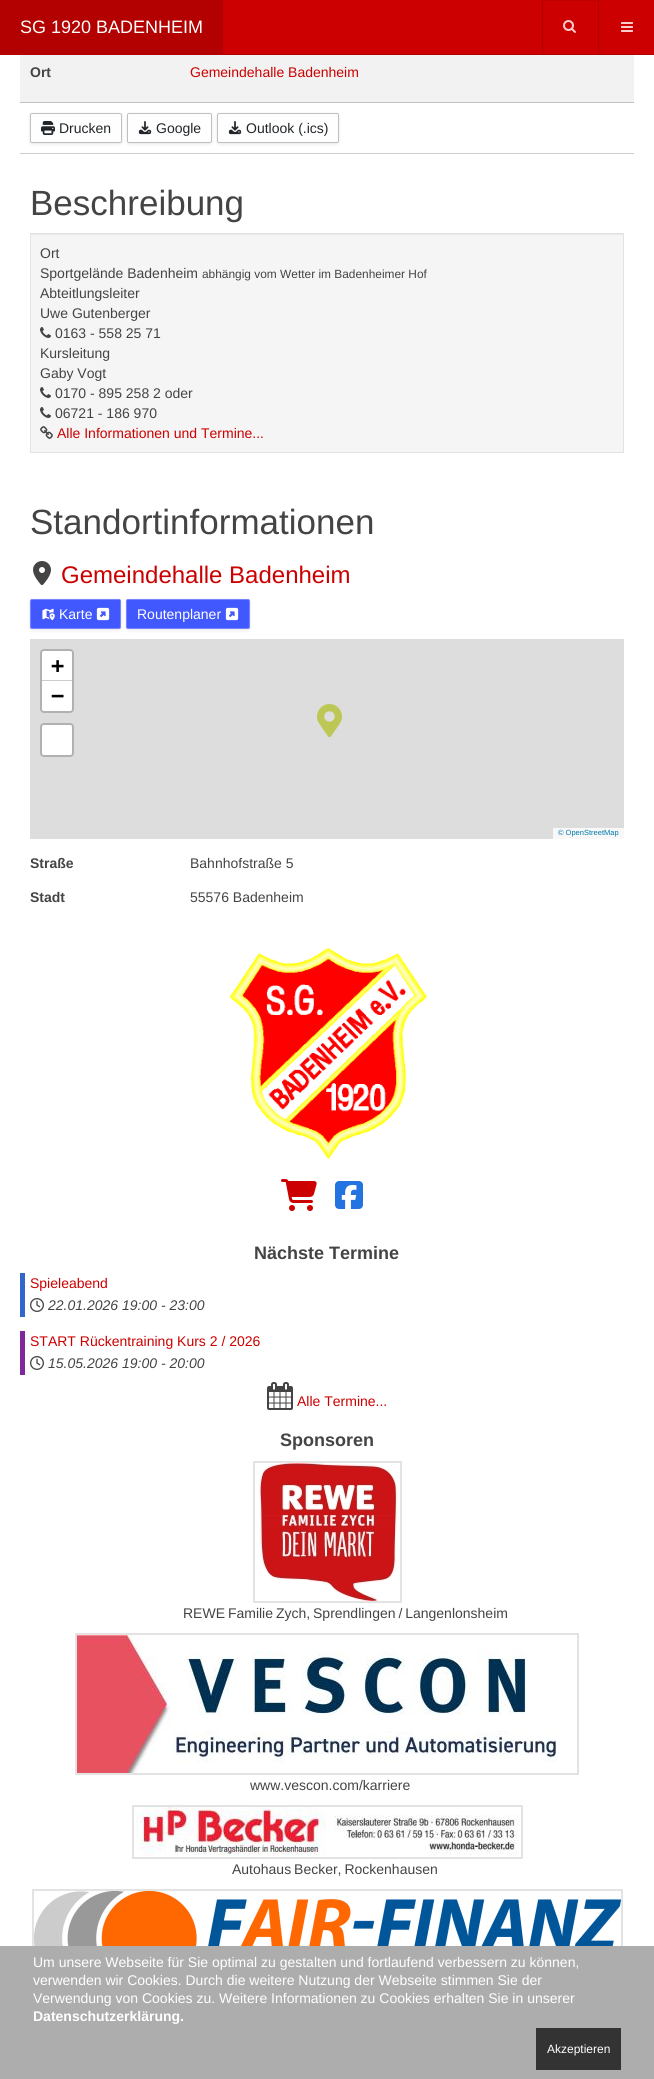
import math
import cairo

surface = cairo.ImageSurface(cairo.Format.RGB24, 654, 2079)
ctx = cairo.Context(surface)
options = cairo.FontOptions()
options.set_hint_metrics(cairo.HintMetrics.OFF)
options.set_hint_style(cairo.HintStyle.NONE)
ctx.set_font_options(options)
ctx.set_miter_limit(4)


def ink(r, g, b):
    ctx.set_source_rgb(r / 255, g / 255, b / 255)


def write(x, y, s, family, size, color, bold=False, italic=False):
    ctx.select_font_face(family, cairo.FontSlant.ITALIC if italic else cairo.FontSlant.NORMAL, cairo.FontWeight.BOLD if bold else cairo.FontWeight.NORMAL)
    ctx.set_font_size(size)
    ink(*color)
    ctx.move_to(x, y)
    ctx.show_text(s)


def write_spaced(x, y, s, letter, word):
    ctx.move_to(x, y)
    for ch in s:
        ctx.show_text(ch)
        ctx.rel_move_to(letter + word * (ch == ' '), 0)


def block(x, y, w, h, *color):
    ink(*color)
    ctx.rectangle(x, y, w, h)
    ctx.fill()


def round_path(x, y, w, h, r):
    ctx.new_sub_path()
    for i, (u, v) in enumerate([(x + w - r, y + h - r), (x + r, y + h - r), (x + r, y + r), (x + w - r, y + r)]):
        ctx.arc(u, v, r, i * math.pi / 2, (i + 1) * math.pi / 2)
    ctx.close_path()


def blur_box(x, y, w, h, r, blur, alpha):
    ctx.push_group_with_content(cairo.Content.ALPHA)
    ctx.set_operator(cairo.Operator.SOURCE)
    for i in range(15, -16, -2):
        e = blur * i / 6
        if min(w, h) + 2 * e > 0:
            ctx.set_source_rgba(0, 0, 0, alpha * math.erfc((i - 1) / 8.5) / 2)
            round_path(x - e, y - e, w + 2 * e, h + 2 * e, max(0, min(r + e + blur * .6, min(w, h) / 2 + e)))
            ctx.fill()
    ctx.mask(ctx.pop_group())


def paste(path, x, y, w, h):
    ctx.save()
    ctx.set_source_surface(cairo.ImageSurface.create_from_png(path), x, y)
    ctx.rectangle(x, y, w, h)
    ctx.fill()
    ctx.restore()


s1 = dict(family="Liberation Sans", size=18, color=(255, 255, 255))
s2 = dict(family="Liberation Sans", size=14, color=(68, 68, 68), bold=True)
s3 = dict(family="Liberation Sans", size=14, color=(204, 0, 0))
s4 = dict(family="Liberation Sans", size=14, color=(33, 37, 41))
s5 = dict(family="Liberation Sans", size=35, color=(68, 68, 68))
s6 = dict(family="Liberation Sans", size=14, color=(68, 68, 68))
s7 = dict(family="Liberation Sans", size=11.9, color=(68, 68, 68))
s8 = dict(family="Liberation Sans", size=24, color=(204, 0, 0))
s9 = dict(family="Liberation Sans", size=14, color=(255, 255, 255))
s10 = dict(family="DejaVu Sans Mono", size=22, color=(0, 0, 0), bold=True)
s11 = dict(family="Liberation Sans", size=7.5, color=(0, 120, 168))
s12 = dict(family="Liberation Sans", size=18, color=(68, 68, 68), bold=True)
s13 = dict(family="Liberation Sans", size=14, color=(68, 68, 68), italic=True)
s14 = dict(family="Liberation Sans", size=14, color=(255, 255, 255), bold=True)
s15 = dict(family="Liberation Sans", size=12, color=(255, 255, 255))

ink(255, 255, 255)
ctx.paint()
block(223, 0, 431, 54, 204, 0, 0)
block(223, 54, 431, 1, 179, 0, 0)
block(0, 0, 223, 55, 179, 0, 0)
write(20, 33, "SG 1920 BADENHEIM", **s1)
block(598, 0, 1, 54, 179, 0, 0)
block(542, 0, 1, 54, 179, 0, 0)
block(543, 0, 55, 1, 189, 0, 0)
paste("pic1.png", 563, 20, 13, 13)
paste("pic2.png", 621, 22, 12, 10)
block(20, 55, 614, 47, 242, 242, 242)
block(20, 102, 614, 1, 194, 194, 194)
write(30, 77, "Ort", **s2)
write(190, 77, "Gemeindehalle Badenheim", **s3)
block(20, 153, 614, 1, 204, 204, 204)
ink(0, 0, 0)
blur_box(30, 114, 92, 30, 2, 1.5, 0.1)
ink(254, 254, 254)
round_path(30.5, 113.5, 91, 29, 1.5)
ctx.fill_preserve()
ink(192, 192, 192)
ctx.set_line_width(1)
ctx.stroke()
paste("pic3.png", 41, 121, 14, 14)
write(59, 133, "Drucken", **s4)
ink(0, 0, 0)
blur_box(127, 114, 85, 30, 2, 1.5, 0.1)
ink(254, 254, 254)
round_path(127.5, 113.5, 84, 29, 1.5)
ctx.fill_preserve()
ink(192, 192, 192)
ctx.stroke()
paste("pic4.png", 138, 121, 14, 14)
write(156, 133, "Google", **s4)
ink(0, 0, 0)
blur_box(217, 114, 122, 30, 2, 1.5, 0.1)
ink(254, 254, 254)
round_path(217.5, 113.5, 121, 29, 1.5)
ctx.fill_preserve()
ink(192, 192, 192)
ctx.stroke()
paste("pic4.png", 228, 121, 14, 14)
write(246, 133, "Outlook (.ics)", **s4)
write(30, 215, "Beschreibung", **s5)
block(31, 235, 592, 217, 245, 245, 245)
block(31, 234, 592, 1, 233, 233, 233)
ctx.rectangle(30.5, 233.5, 593, 219)
ink(227, 227, 227)
ctx.stroke()
write(40, 258, "Ort", **s6)
write(40, 278, "Sportgelände Badenheim", **s6)
write(202, 278, "abhängig vom Wetter im Badenheimer Hof", **s7)
write(40, 298, "Abteitlungsleiter", **s6)
write(40, 318, "Uwe Gutenberger", **s6)
paste("pic5.png", 40, 327, 11, 11)
write(55, 338, "0163 - 558 25 71", **s6)
write(40, 358, "Kursleitung", **s6)
write(40, 378, "Gaby Vogt", **s6)
paste("pic5.png", 40, 387, 11, 11)
write(55, 398, "0170 - 895 258 2 oder", **s6)
paste("pic5.png", 40, 407, 11, 11)
write(55, 418, "06721 - 186 970", **s6)
paste("pic6.png", 40, 426, 13, 13)
write(57, 438, "Alle Informationen und Termine...", **s3)
write(30, 534, "Standortinformationen", **s5)
paste("pic7.png", 33, 561, 18, 24)
write(61, 583, "Gemeindehalle Badenheim", **s8)
ink(0, 0, 0)
blur_box(30, 600, 91, 30, 2, 1.5, 0.1)
ink(66, 88, 255)
round_path(30.5, 599.5, 90, 29, 1.5)
ctx.fill_preserve()
ink(117, 133, 255)
ctx.stroke()
paste("pic8.png", 42, 608, 13, 13)
write(59, 619, "Karte", **s9)
paste("pic9.png", 96, 607, 14, 14)
ink(0, 0, 0)
blur_box(126, 600, 124, 30, 2, 1.5, 0.1)
ink(66, 88, 255)
round_path(126.5, 599.5, 123, 29, 1.5)
ctx.fill_preserve()
ink(117, 133, 255)
ctx.stroke()
write(137, 619, "Routenplaner", **s9)
paste("pic9.png", 225, 607, 14, 14)
block(30, 639, 594, 200, 221, 221, 221)
round_path(41, 650, 32, 62, 3)
ink(177, 177, 177)
ctx.set_line_width(2)
ctx.stroke()
ink(255, 255, 255)
ctx.new_path()
ctx.move_to(44, 651)
ctx.line_to(70, 651)
ctx.curve_to(71, 651, 72, 652, 72, 653)
ctx.line_to(72, 681)
ctx.line_to(42, 681)
ctx.line_to(42, 653)
ctx.curve_to(42, 652, 43, 651, 44, 651)
ctx.close_path()
ctx.fill()
block(42, 680, 30, 1, 204, 204, 204)
write(51, 673, "+", **s10)
ink(255, 255, 255)
ctx.new_path()
ctx.move_to(42, 681)
ctx.line_to(72, 681)
ctx.line_to(72, 709)
ctx.curve_to(72, 710, 71, 711, 70, 711)
ctx.line_to(44, 711)
ctx.curve_to(43, 711, 42, 710, 42, 709)
ctx.close_path()
ctx.fill()
write(51, 703, "−", **s10)
round_path(41, 724, 32, 32, 3)
ink(177, 177, 177)
ctx.stroke()
ink(255, 255, 255)
round_path(42, 725, 30, 30, 2)
ctx.fill()
block(553, 828, 71, 11, 248, 248, 248)
write(558, 835, "© OpenStreetMap", **s11)
paste("pic10.png", 317, 704, 25, 33)
write(30, 868, "Straße", **s2)
write(190, 868, "Bahnhofstraße 5", **s6)
write(30, 902, "Stadt", **s2)
write(190, 902, "55576 Badenheim", **s6)
paste("pic11.png", 229, 947, 199, 212)
paste("pic12.png", 281, 1179, 36, 32)
paste("pic13.png", 335, 1181, 28, 28)
write(254, 1259, "Nächste Termine", **s12)
block(20, 1273, 5, 44, 51, 102, 204)
write(30, 1288, "Spieleabend", **s3)
paste("pic14.png", 30, 1298, 14, 14)
write(48, 1310, "22.01.2026 19:00 - 23:00", **s13)
block(20, 1331, 5, 44, 126, 40, 156)
write(30, 1346, "START Rückentraining Kurs 2 / 2026", **s3)
paste("pic14.png", 30, 1356, 14, 14)
write(48, 1368, "15.05.2026 19:00 - 20:00", **s13)
paste("pic15.png", 267, 1382, 26, 28)
write(297, 1406, "Alle Termine...", **s3)
write(280, 1446, "Sponsoren", **s12)
ctx.rectangle(254, 1462, 147, 140)
ink(227, 227, 227)
ctx.stroke()
paste("pic16.png", 259, 1463, 139, 138)
ctx.select_font_face("Liberation Sans")
ctx.set_font_size(14)
ink(68, 68, 68)
write_spaced(183, 1618, "REWE Familie Zych, Sprendlingen / Langenlonsheim", 0, -1)
ctx.rectangle(76, 1634, 502, 140)
ink(227, 227, 227)
ctx.stroke()
paste("pic17.png", 77, 1635, 480, 138)
write(250, 1790, "www.vescon.com/karriere", **s6)
ctx.rectangle(133, 1806, 389, 52)
ink(227, 227, 227)
ctx.stroke()
paste("pic18.png", 134, 1807, 384, 49)
ink(68, 68, 68)
write_spaced(232, 1874, "Autohaus Becker, Rockenhausen", 0, -1)
ctx.rectangle(33, 1890, 589, 102)
ink(227, 227, 227)
ctx.stroke()
paste("pic19.png", 34, 1891, 587, 55)
block(0, 1946, 654, 133, 173, 173, 173)
write(33, 1967, "Um unsere Webseite für Sie optimal zu gestalten und fortlaufend verbessern zu können,", **s9)
write(33, 1985, "verwenden wir Cookies. Durch die weitere Nutzung der Webseite stimmen Sie der", **s9)
write(33, 2003, "Verwendung von Cookies zu. Weitere Informationen zu Cookies erhalten Sie in unserer", **s9)
write(33, 2021, "Datenschutzerklärung.", **s14)
block(536, 2028, 85, 42, 51, 51, 51)
write(547, 2053, "Akzeptieren", **s15)
surface.write_to_png("screenshot.png")
